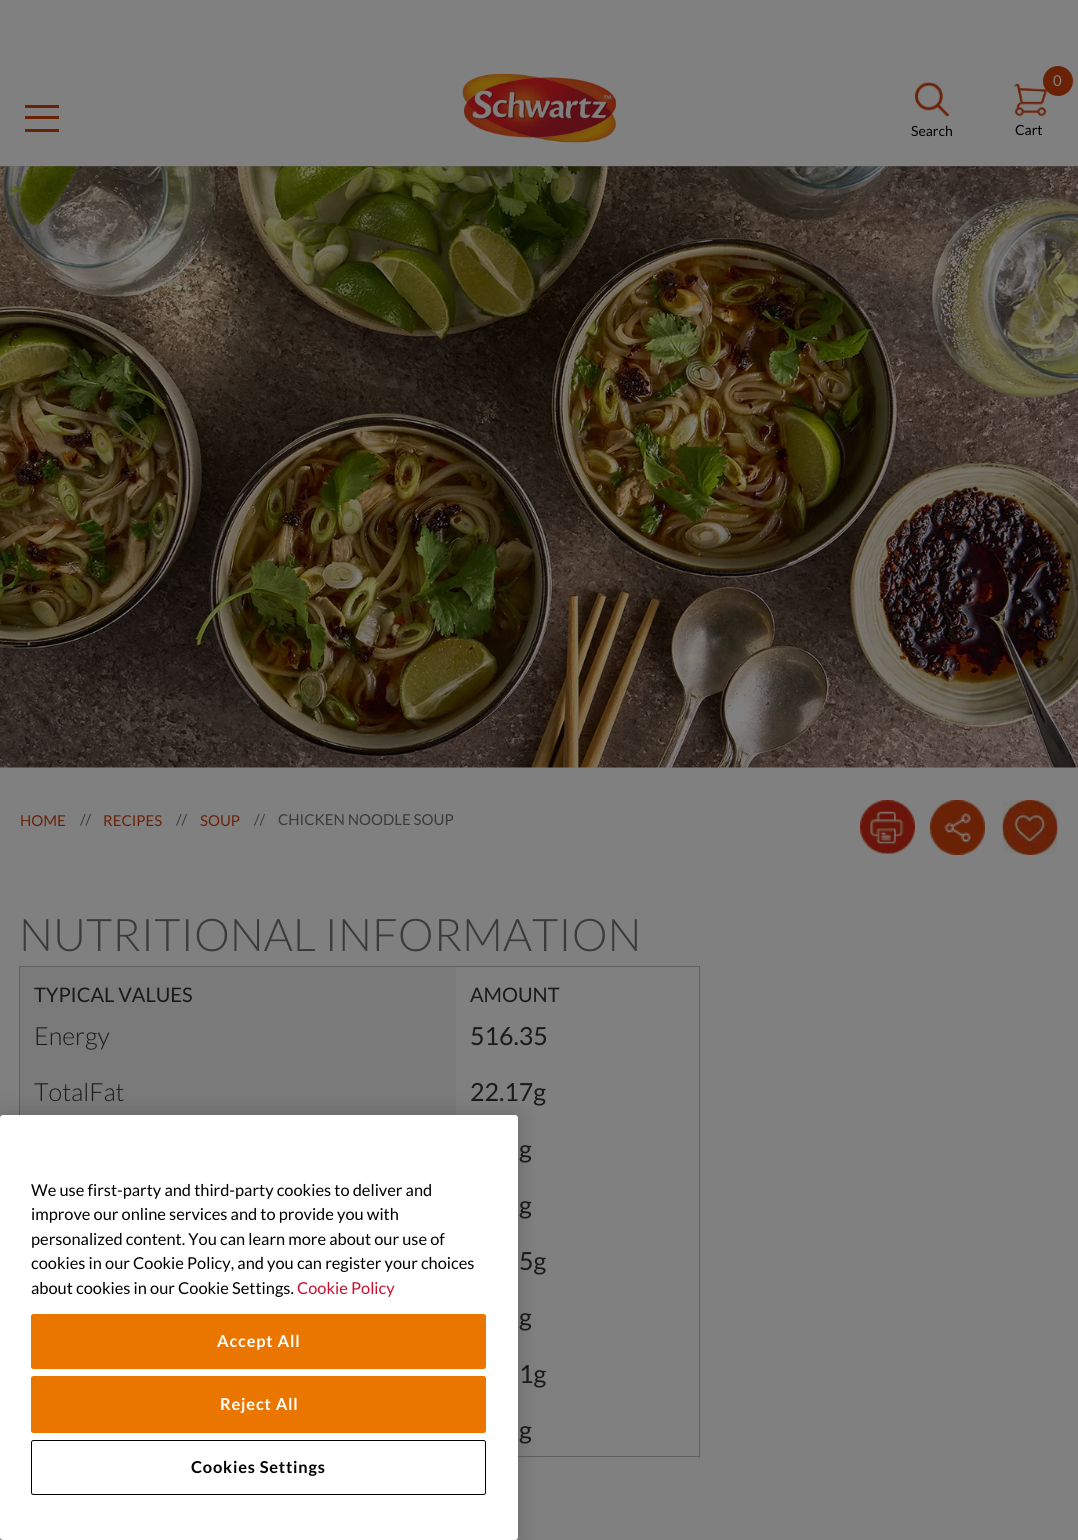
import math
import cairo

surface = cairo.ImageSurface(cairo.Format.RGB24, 1078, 1540)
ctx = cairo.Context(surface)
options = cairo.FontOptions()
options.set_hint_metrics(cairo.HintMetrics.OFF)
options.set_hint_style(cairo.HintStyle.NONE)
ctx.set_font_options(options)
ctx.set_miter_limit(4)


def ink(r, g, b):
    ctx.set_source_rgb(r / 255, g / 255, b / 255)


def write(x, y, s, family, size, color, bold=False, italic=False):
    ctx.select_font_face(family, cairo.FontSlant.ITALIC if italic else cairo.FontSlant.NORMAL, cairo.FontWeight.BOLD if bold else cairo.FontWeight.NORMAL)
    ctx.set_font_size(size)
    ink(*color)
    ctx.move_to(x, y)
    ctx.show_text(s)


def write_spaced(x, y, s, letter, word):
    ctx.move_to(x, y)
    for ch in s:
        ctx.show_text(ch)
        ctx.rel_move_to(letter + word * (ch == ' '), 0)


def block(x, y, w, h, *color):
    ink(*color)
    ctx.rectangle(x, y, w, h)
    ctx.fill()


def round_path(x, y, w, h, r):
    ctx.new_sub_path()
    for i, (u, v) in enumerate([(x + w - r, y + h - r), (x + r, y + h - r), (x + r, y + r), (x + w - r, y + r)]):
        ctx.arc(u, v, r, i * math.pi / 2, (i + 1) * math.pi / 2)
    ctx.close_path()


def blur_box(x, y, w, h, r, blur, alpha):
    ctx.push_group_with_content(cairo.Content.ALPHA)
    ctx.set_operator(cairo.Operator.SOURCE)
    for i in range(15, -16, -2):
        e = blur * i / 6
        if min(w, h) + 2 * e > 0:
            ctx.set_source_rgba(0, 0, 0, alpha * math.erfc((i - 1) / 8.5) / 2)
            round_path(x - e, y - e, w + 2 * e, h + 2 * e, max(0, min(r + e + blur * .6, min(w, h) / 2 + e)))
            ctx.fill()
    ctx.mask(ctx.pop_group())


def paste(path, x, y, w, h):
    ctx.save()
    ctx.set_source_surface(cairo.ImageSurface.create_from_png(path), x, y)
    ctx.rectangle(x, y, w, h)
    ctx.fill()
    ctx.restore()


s1 = dict(family="Lato", size=14, color=(0, 0, 0))
s2 = dict(family="Lato", size=15, color=(128, 128, 128))
s3 = dict(family="Lato", size=15, color=(106, 34, 7))
s4 = dict(family="Lato", size=15, color=(58, 58, 58))
s5 = dict(family="Lato Light", size=45, color=(58, 58, 58))
s6 = dict(family="Lato", size=20, color=(26, 26, 26))
s7 = dict(family="Lato Light", size=25, color=(26, 26, 26))
s8 = dict(family="Lato", size=25, color=(26, 26, 26))
s9 = dict(family="Lato", size=16.4, color=(0, 0, 0))
s10 = dict(family="Lato", size=16.4, color=(200, 16, 46))

ink(128, 128, 128)
ctx.paint()
ctx.save()
ctx.rectangle(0, 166, 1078, 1)
ctx.clip()
ink(0, 0, 0)
blur_box(0, 0, 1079, 166, 0, 4, 0.47)
ctx.restore()
block(25, 116, 34, 3, 106, 34, 7)
block(25, 105, 34, 3, 106, 34, 7)
block(25, 129, 34, 3, 106, 34, 7)
paste("pic1.png", 462, 73, 155, 70)
paste("pic2.png", 915, 82, 35, 35)
write(911, 136, "Search", **s1)
paste("pic3.png", 1013, 83, 35, 34)
ink(106, 34, 7)
ctx.arc(1058, 81, 15, 0, 2 * math.pi)
ctx.fill()
write(1053, 86, "0", **s2)
write(1015, 135, "Cart", **s1)
paste("pic4.png", 0, 166, 1078, 602)
write(20, 826, "HOME", **s3)
write(80, 825, "//", **s4)
write(103, 826, "RECIPES", **s3)
write(176, 825, "//", **s4)
write(200, 826, "SOUP", **s3)
write(254, 825, "//", **s4)
write(278, 825, "CHICKEN NOODLE SOUP", **s4)
paste("pic5.png", 860, 800, 55, 54)
paste("pic6.png", 930, 800, 55, 55)
paste("pic7.png", 1002, 800, 56, 55)
write(19, 951, "NUTRITIONAL INFORMATION", **s5)
block(19, 966, 681, 1, 96, 96, 96)
block(699, 966, 1, 492, 96, 96, 96)
block(518, 1456, 182, 1, 96, 96, 96)
block(19, 966, 1, 149, 96, 96, 96)
block(20, 967, 436, 148, 122, 122, 122)
write(34, 1002, "TYPICAL VALUES", **s6)
write(470, 1002, "AMOUNT", **s6)
write(34, 1045, "Energy", **s7)
write(470, 1045, "516.35", **s8)
write(34, 1101, "TotalFat", **s7)
write(470, 1101, "22.17g", **s8)
write(519, 1158, "g", **s8)
write(519, 1214, "g", **s8)
write(519, 1270, "5g", **s8)
write(519, 1326, "g", **s8)
write(519, 1383, "1g", **s8)
write(519, 1439, "g", **s8)
ink(0, 0, 0)
blur_box(0, 1115, 518, 425, 3, 11, 0.2)
ink(255, 255, 255)
round_path(0, 1115, 518, 425, 3)
ctx.fill()
write(31, 1196, "We use first-party and third-party cookies to deliver and", **s9)
write(31, 1220, "improve our online services and to provide you with", **s9)
write(31, 1245, "personalized content. You can learn more about our use of", **s9)
write(31, 1269, "cookies in our Cookie Policy, and you can register your choices", **s9)
write(31, 1294, "about cookies in our Cookie Settings.", **s9)
write(297, 1294, "Cookie Policy", **s10)
ink(234, 118, 0)
round_path(31.5, 1314.5, 454, 54, 2)
ctx.fill_preserve()
ctx.set_line_width(1)
ctx.stroke()
ctx.select_font_face("Lato", cairo.FontSlant.NORMAL, cairo.FontWeight.BOLD)
ink(255, 255, 255)
write_spaced(217, 1347, "Accept All", 0.8, 0)
ink(234, 118, 0)
round_path(31.5, 1376.5, 454, 56, 2)
ctx.fill_preserve()
ctx.stroke()
ink(255, 255, 255)
write_spaced(220, 1410, "Reject All", 0.8, 0)
round_path(31.5, 1440.5, 454, 54, 2)
ink(0, 0, 0)
ctx.stroke()
write_spaced(191, 1473, "Cookies Settings", 0.8, 0)
surface.write_to_png("screenshot.png")
